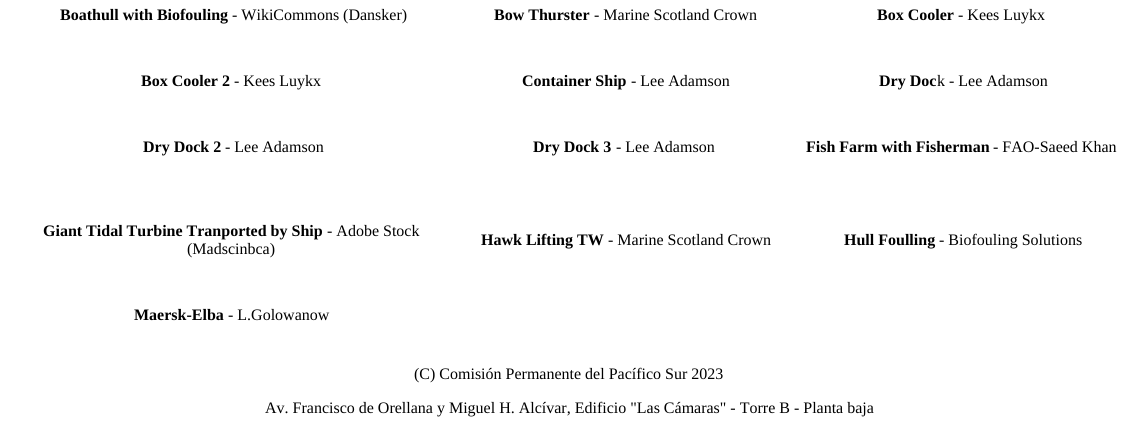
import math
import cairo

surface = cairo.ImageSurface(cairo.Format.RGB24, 1138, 425)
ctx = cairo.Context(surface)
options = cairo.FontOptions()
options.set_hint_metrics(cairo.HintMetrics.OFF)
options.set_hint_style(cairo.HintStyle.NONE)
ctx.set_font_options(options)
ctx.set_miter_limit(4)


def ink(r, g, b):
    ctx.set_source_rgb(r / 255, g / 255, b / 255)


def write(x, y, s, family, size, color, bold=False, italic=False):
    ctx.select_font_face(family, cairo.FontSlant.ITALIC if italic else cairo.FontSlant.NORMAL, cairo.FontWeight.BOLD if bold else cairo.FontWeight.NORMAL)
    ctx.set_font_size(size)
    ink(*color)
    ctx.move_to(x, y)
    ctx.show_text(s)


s1 = dict(family="Liberation Serif", size=16, color=(0, 0, 0), bold=True)
s2 = dict(family="Liberation Serif", size=16, color=(0, 0, 0))

ink(255, 255, 255)
ctx.paint()
write(60, 20, "Boathull with Biofouling", **s1)
write(232, 20, "- WikiCommons (Dansker)", **s2)
write(494, 20, "Bow Thurster", **s1)
write(594, 20, "- Marine Scotland Crown", **s2)
write(877, 20, "Box Cooler", **s1)
write(958, 20, "- Kees Luykx", **s2)
write(141, 86, "Box Cooler 2", **s1)
write(234, 86, "- Kees Luykx", **s2)
write(522, 86, "Container Ship", **s1)
write(631, 86, "- Lee Adamson", **s2)
write(879, 86, "Dry Doc", **s1)
write(937, 86, "k - Lee Adamson", **s2)
write(143, 152, "Dry Dock 2", **s1)
write(225, 152, "- Lee Adamson", **s2)
write(533, 152, "Dry Dock 3", **s1)
write(616, 152, "- Lee Adamson", **s2)
write(806, 152, "Fish Farm with Fisherman", **s1)
write(993, 152, "- FAO-Saeed Khan", **s2)
write(43, 236, "Giant Tidal Turbine Tranported by Ship", **s1)
write(327, 236, "- Adobe Stock", **s2)
write(187, 254, "(Madscinbca)", **s2)
write(481, 245, "Hawk Lifting TW", **s1)
write(608, 245, "- Marine Scotland Crown", **s2)
write(844, 245, "Hull Foulling", **s1)
write(939, 245, "- Biofouling Solutions", **s2)
write(134, 320, "Maersk-Elba", **s1)
write(228, 320, "- L.Golowanow", **s2)
write(414, 379, "(C) Comisión Permanente del Pacífico Sur 2023", **s2)
write(265, 413, "Av. Francisco de Orellana y Miguel H. Alcívar, Edificio \"Las Cámaras\" - Torre B - Planta baja", **s2)
surface.write_to_png("screenshot.png")
